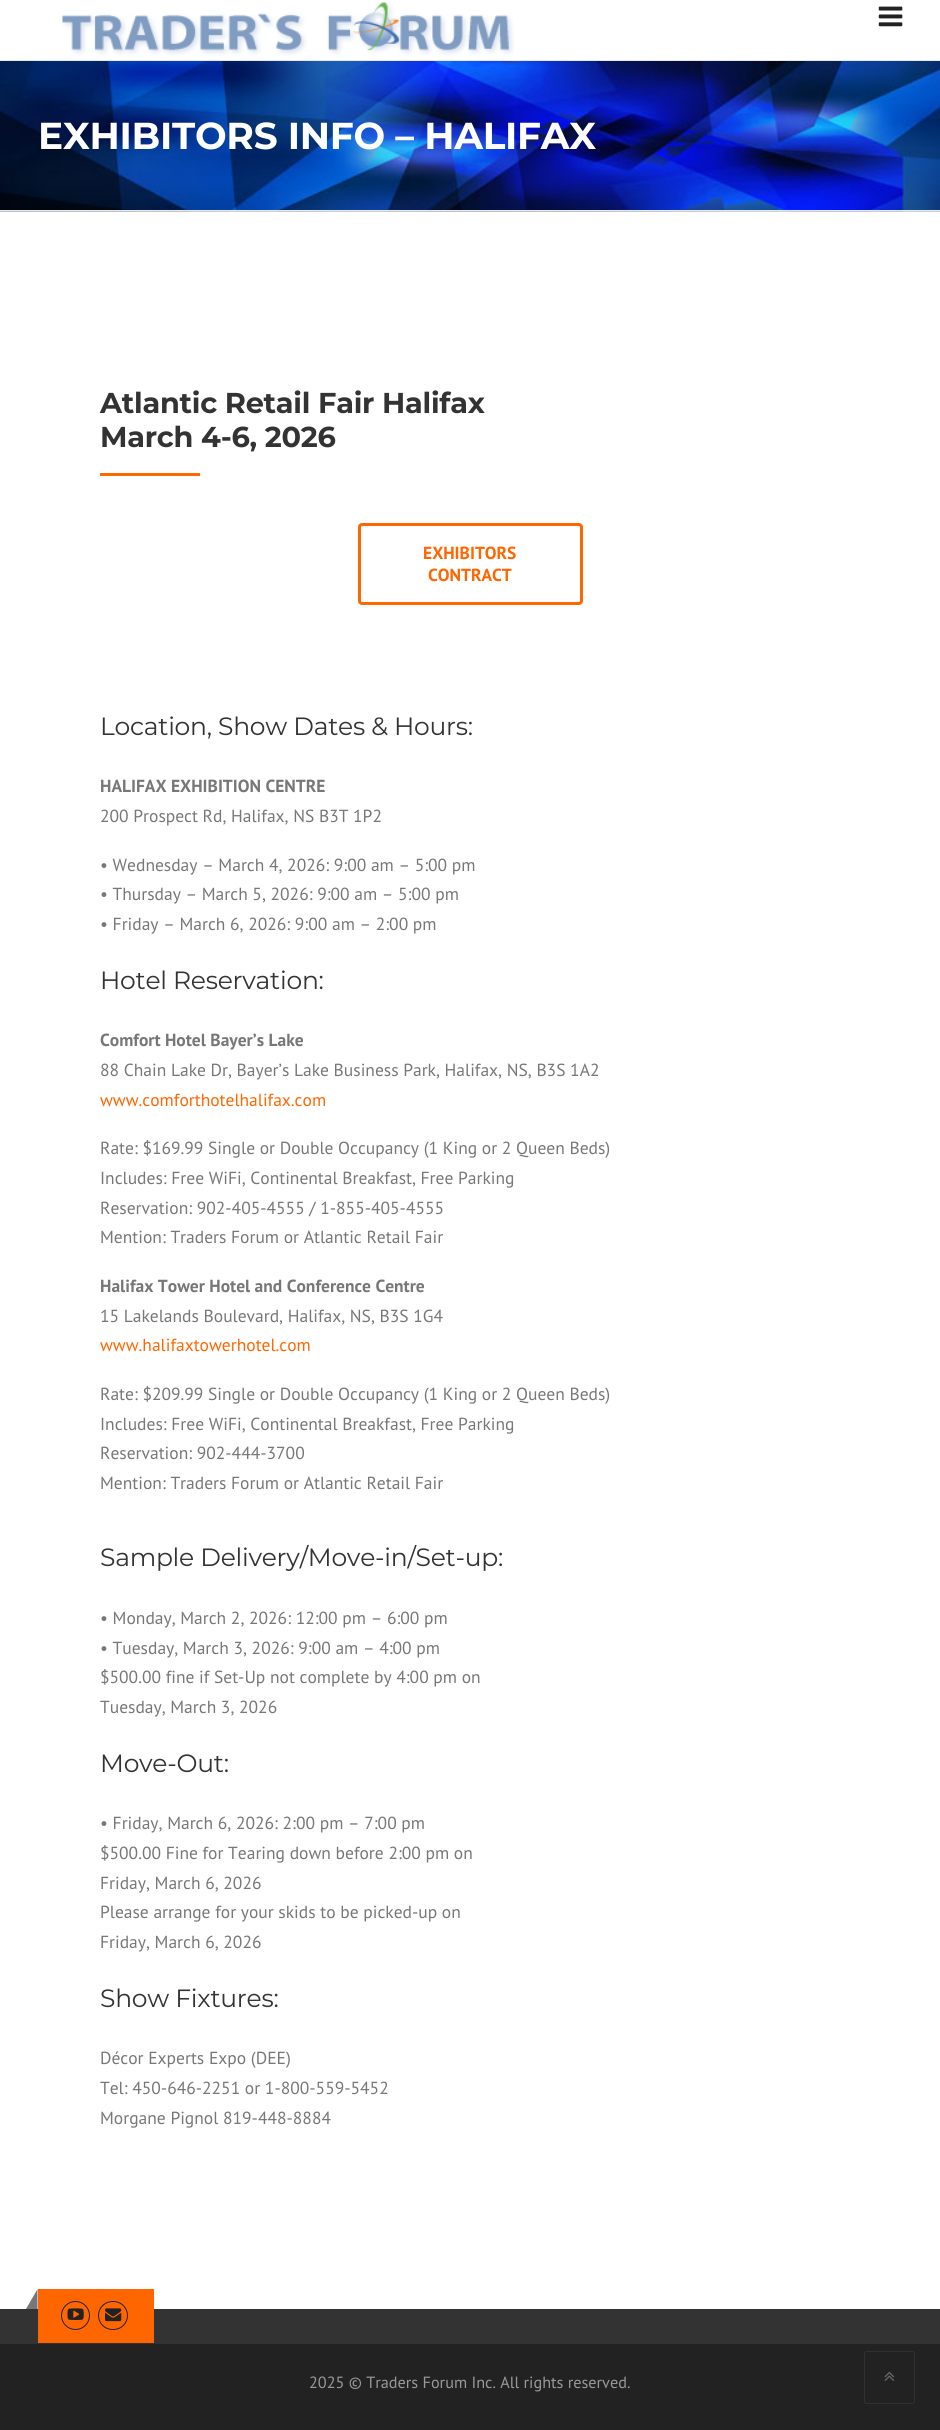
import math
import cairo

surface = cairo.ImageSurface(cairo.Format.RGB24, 940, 2430)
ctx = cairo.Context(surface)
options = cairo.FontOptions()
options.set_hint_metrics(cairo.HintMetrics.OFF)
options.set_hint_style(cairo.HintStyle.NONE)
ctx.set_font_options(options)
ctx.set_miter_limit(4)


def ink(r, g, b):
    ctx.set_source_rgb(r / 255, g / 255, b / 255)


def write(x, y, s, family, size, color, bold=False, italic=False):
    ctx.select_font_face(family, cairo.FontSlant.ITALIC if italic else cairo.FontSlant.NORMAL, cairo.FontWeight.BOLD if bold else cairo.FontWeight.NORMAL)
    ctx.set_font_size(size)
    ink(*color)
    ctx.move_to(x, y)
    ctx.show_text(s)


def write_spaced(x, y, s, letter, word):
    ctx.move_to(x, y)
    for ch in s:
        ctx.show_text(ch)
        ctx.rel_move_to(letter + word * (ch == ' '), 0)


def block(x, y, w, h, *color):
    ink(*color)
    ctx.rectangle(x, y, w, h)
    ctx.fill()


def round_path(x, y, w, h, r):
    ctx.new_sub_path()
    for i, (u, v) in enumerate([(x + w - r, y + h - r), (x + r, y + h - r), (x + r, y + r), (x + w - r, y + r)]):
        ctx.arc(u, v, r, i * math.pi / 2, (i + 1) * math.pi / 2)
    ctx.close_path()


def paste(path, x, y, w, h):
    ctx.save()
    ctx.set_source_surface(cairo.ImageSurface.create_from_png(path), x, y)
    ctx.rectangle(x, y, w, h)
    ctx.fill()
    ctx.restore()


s1 = dict(family="PT Sans", size=17.5, color=(255, 102, 0), bold=True)
s2 = dict(family="PT Sans", size=17.5, color=(119, 119, 119), bold=True)
s3 = dict(family="PT Sans", size=17.5, color=(119, 119, 119))
s4 = dict(family="PT Sans", size=17.5, color=(255, 102, 0))
s5 = dict(family="PT Sans", size=16.25, color=(153, 153, 153))

ink(255, 255, 255)
ctx.paint()
paste("pic1.png", 62, 2, 452, 54)
paste("pic2.png", 878, 6, 25, 21)
paste("pic3.png", 0, 61, 940, 151)
block(0, 60, 940, 1, 233, 233, 233)
block(0, 210, 940, 1, 233, 233, 233)
ctx.select_font_face("Montserrat", cairo.FontSlant.NORMAL, cairo.FontWeight.BOLD)
ctx.set_font_size(37.5)
ink(255, 255, 255)
write_spaced(38, 149, "EXHIBITORS INFO – HALIFAX", -0.25, 0)
ctx.set_font_size(28.75)
ink(51, 51, 51)
write_spaced(100, 413, "Atlantic Retail Fair Halifax", -0.25, 0)
write_spaced(100, 447, "March 4-6, 2026", -0.25, 0)
block(100, 473, 100, 3, 255, 102, 0)
round_path(359.5, 524.5, 222, 79, 2.5)
ctx.set_line_width(3)
ctx.stroke()
write(423, 559, "EXHIBITORS", **s1)
write(428, 581, "CONTRACT", **s1)
ctx.select_font_face("Montserrat")
ctx.set_font_size(25)
ink(51, 51, 51)
write_spaced(100, 735, "Location, Show Dates & Hours:", -0.25, 0)
write(100, 792, "HALIFAX EXHIBITION CENTRE", **s2)
write(100, 822, "200 Prospect Rd, Halifax, NS B3T 1P2", **s3)
write(100, 871, "• Wednesday – March 4, 2026: 9:00 am – 5:00 pm", **s3)
write(100, 900, "• Thursday – March 5, 2026: 9:00 am – 5:00 pm", **s3)
write(100, 930, "• Friday – March 6, 2026: 9:00 am – 2:00 pm", **s3)
ctx.select_font_face("Montserrat")
ctx.set_font_size(25)
ink(51, 51, 51)
write_spaced(100, 989, "Hotel Reservation:", -0.25, 0)
write(100, 1046, "Comfort Hotel Bayer’s Lake", **s2)
write(100, 1076, "88 Chain Lake Dr, Bayer’s Lake Business Park, Halifax, NS, B3S 1A2", **s3)
write(100, 1106, "www.comforthotelhalifax.com", **s4)
write(100, 1154, "Rate: $169.99 Single or Double Occupancy (1 King or 2 Queen Beds)", **s3)
write(100, 1184, "Includes: Free WiFi, Continental Breakfast, Free Parking", **s3)
write(100, 1214, "Reservation: 902-405-4555 / 1-855-405-4555", **s3)
write(100, 1243, "Mention: Traders Forum or Atlantic Retail Fair", **s3)
write(100, 1292, "Halifax Tower Hotel and Conference Centre", **s2)
write(100, 1322, "15 Lakelands Boulevard, Halifax, NS, B3S 1G4", **s3)
write(100, 1351, "www.halifaxtowerhotel.com", **s4)
write(100, 1400, "Rate: $209.99 Single or Double Occupancy (1 King or 2 Queen Beds)", **s3)
write(100, 1430, "Includes: Free WiFi, Continental Breakfast, Free Parking", **s3)
write(100, 1459, "Reservation: 902-444-3700", **s3)
write(100, 1489, "Mention: Traders Forum or Atlantic Retail Fair", **s3)
ctx.select_font_face("Montserrat")
ctx.set_font_size(25)
ink(51, 51, 51)
write_spaced(100, 1566, "Sample Delivery/Move-in/Set-up:", -0.25, 0)
write(100, 1624, "• Monday, March 2, 2026: 12:00 pm – 6:00 pm", **s3)
write(100, 1654, "• Tuesday, March 3, 2026: 9:00 am – 4:00 pm", **s3)
write(100, 1683, "$500.00 fine if Set-Up not complete by 4:00 pm on", **s3)
write(100, 1713, "Tuesday, March 3, 2026", **s3)
ctx.select_font_face("Montserrat")
ctx.set_font_size(25)
ink(51, 51, 51)
write_spaced(100, 1772, "Move-Out:", -0.25, 0)
write(100, 1829, "• Friday, March 6, 2026: 2:00 pm – 7:00 pm", **s3)
write(100, 1859, "$500.00 Fine for Tearing down before 2:00 pm on", **s3)
write(100, 1889, "Friday, March 6, 2026", **s3)
write(100, 1918, "Please arrange for your skids to be picked-up on", **s3)
write(100, 1948, "Friday, March 6, 2026", **s3)
ctx.select_font_face("Montserrat")
ctx.set_font_size(25)
ink(51, 51, 51)
write_spaced(100, 2007, "Show Fixtures:", -0.25, 0)
write(100, 2064, "Décor Experts Expo (DEE)", **s3)
write(100, 2094, "Tel: 450-646-2251 or 1-800-559-5452", **s3)
write(100, 2124, "Morgane Pignol 819-448-8884", **s3)
block(0, 2309, 940, 35, 51, 51, 51)
block(38, 2289, 116, 54, 255, 102, 0)
ink(119, 119, 119)
ctx.new_path()
ctx.move_to(37.5, 2289)
ctx.line_to(37.5, 2309)
ctx.line_to(26, 2309)
ctx.close_path()
ctx.fill()
ctx.arc(75.5, 2315.5, 14, 0, 2 * math.pi)
ink(34, 34, 34)
ctx.set_line_width(1)
ctx.stroke()
paste("pic4.png", 67, 2308, 17, 12)
round_path(98.5, 2301.5, 29, 28, 14)
ctx.stroke()
paste("pic5.png", 105, 2308, 17, 14)
block(0, 2344, 940, 86, 34, 34, 34)
write(309, 2388, "2025 © Traders Forum Inc. All rights reserved.", **s5)
round_path(864.5, 2351.5, 50, 52, 2)
ink(48, 48, 48)
ctx.stroke()
paste("pic6.png", 884, 2371, 11, 10)
surface.write_to_png("screenshot.png")
